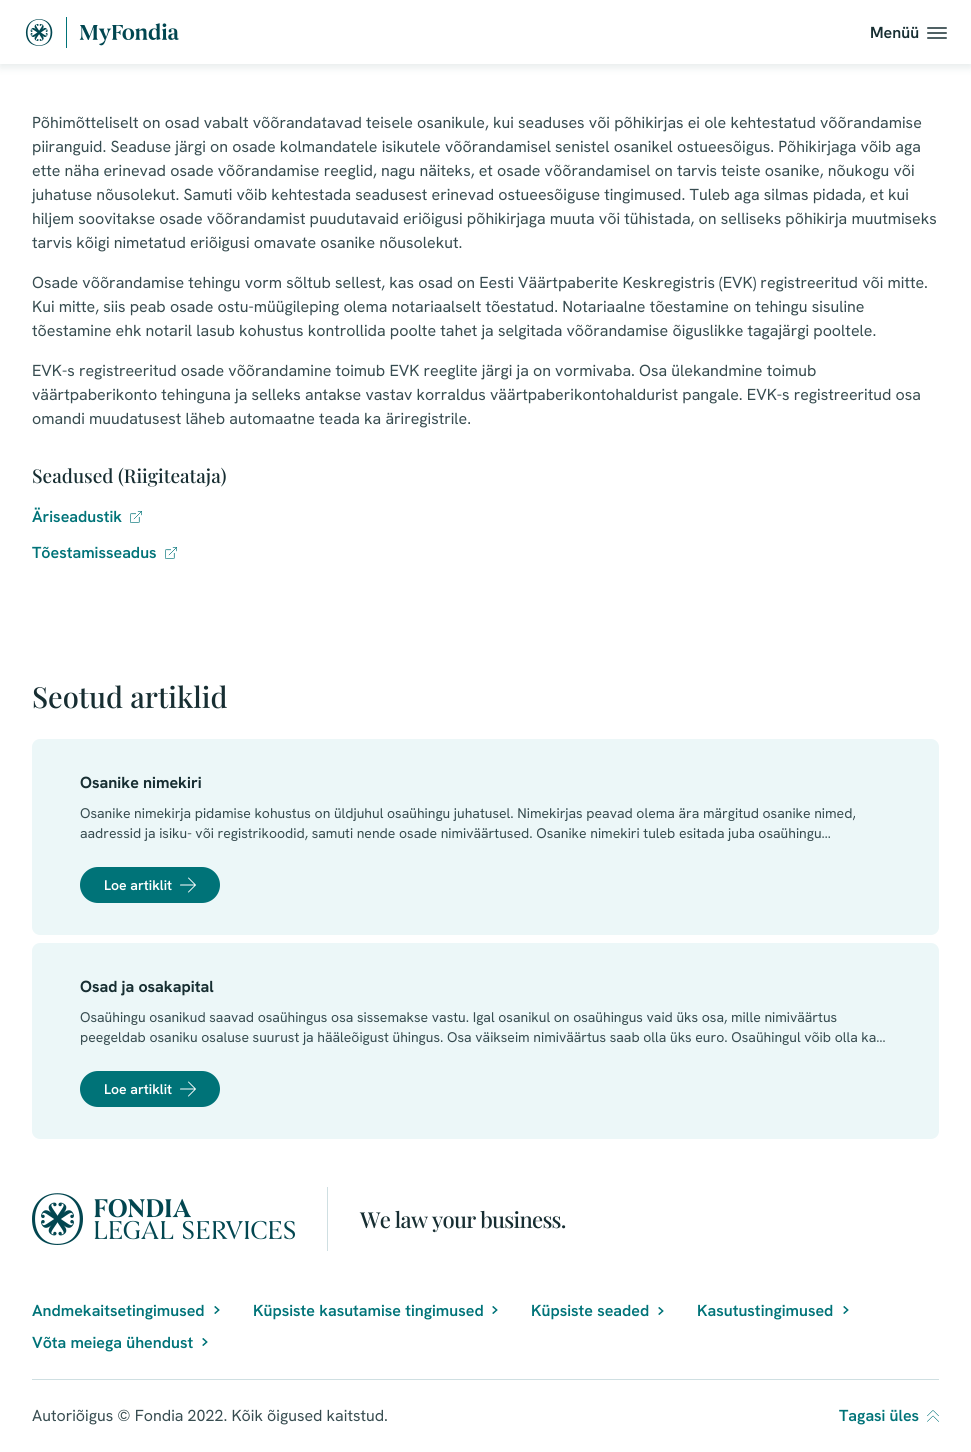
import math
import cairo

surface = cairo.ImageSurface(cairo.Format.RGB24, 971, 1452)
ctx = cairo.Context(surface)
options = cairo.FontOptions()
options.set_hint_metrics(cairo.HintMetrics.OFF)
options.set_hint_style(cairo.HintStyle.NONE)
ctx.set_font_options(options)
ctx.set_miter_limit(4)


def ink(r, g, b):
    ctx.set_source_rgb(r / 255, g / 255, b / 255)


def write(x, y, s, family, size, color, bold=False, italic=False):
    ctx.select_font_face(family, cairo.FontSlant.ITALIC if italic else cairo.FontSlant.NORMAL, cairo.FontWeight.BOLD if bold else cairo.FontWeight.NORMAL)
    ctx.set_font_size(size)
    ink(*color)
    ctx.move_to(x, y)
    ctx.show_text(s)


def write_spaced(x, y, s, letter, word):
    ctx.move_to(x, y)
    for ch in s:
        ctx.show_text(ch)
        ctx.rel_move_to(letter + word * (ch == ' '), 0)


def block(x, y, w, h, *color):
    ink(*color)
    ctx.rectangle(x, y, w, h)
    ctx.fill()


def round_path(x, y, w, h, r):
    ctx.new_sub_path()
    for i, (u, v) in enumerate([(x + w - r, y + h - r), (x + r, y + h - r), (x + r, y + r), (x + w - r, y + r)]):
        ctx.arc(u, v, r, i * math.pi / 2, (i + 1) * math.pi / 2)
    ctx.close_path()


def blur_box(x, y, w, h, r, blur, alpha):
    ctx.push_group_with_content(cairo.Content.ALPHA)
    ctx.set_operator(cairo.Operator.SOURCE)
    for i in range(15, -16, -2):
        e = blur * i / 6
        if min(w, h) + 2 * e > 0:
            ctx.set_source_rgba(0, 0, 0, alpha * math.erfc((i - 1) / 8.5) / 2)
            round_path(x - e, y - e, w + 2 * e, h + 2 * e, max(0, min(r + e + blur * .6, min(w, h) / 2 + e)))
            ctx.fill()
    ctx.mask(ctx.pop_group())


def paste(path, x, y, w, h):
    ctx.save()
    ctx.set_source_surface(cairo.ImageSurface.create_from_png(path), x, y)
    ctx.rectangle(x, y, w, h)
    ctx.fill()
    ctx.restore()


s1 = dict(family="Hanken Grotesk SemiBold", size=16, color=(23, 46, 50))
s2 = dict(family="Hanken Grotesk", size=16, color=(55, 76, 80))
s3 = dict(family="Playfair Display Medium", size=19, color=(23, 46, 50))
s4 = dict(family="Hanken Grotesk SemiBold", size=16, color=(0, 115, 120))
s5 = dict(family="Playfair Display Medium", size=29, color=(23, 46, 50))
s6 = dict(family="Hanken Grotesk", size=16, color=(23, 46, 50), bold=True)
s7 = dict(family="Hanken Grotesk", size=14, color=(55, 76, 80))
s8 = dict(family="Hanken Grotesk SemiBold", size=14, color=(255, 255, 255))

ink(255, 255, 255)
ctx.paint()
ink(51, 92, 93)
blur_box(0, 3, 971, 64, 0, 4.5, 0.13)
block(0, 0, 971, 64, 255, 255, 255)
paste("pic1.png", 25, 17, 154, 31)
write(870, 38, "Menüü", **s1)
paste("pic2.png", 927, 27, 20, 12)
write(32, 128, "Põhimõtteliselt on osad vabalt võõrandatavad teisele osanikule, kui seaduses või põhikirjas ei ole kehtestatud võõrandamise", **s2)
write(32, 152, "piiranguid. Seaduse järgi on osade kolmandatele isikutele võõrandamisel senistel osanikel ostueesõigus. Põhikirjaga võib aga", **s2)
write(32, 176, "ette näha erinevad osade võõrandamise reeglid, nagu näiteks, et osade võõrandamisel on tarvis teiste osanike, nõukogu või", **s2)
write(32, 200, "juhatuse nõusolekut. Samuti võib kehtestada seadusest erinevad ostueesõiguse tingimused. Tuleb aga silmas pidada, et kui", **s2)
write(32, 224, "hiljem soovitakse osade võõrandamist puudutavaid eriõigusi põhikirjaga muuta või tühistada, on selliseks põhikirja muutmiseks", **s2)
write(32, 248, "tarvis kõigi nimetatud eriõigusi omavate osanike nõusolekut.", **s2)
write(32, 288, "Osade võõrandamise tehingu vorm sõltub sellest, kas osad on Eesti Väärtpaberite Keskregistris (EVK) registreeritud või mitte.", **s2)
write(32, 312, "Kui mitte, siis peab osade ostu-müügileping olema notariaalselt tõestatud. Notariaalne tõestamine on tehingu sisuline", **s2)
write(32, 336, "tõestamine ehk notaril lasub kohustus kontrollida poolte tahet ja selgitada võõrandamise õiguslikke tagajärgi pooltele.", **s2)
write(32, 376, "EVK-s registreeritud osade võõrandamine toimub EVK reeglite järgi ja on vormivaba. Osa ülekandmine toimub", **s2)
write(32, 400, "väärtpaberikonto tehinguna ja selleks antakse vastav korraldus väärtpaberikontohaldurist pangale. EVK-s registreeritud osa", **s2)
write(32, 424, "omandi muudatusest läheb automaatne teada ka äriregistrile.", **s2)
write(32, 483, "Seadused (Riigiteataja)", **s3)
write(32, 522, "Äriseadustik", **s4)
paste("pic3.png", 130, 511, 12, 12)
write(32, 558, "Tõestamisseadus", **s4)
paste("pic3.png", 165, 547, 12, 12)
write(32, 708, "Seotud artiklid", **s5)
ink(236, 247, 248)
round_path(32, 739, 907, 196, 8)
ctx.fill()
write(80, 788, "Osanike nimekiri", **s6)
write(80, 818, "Osanike nimekirja pidamise kohustus on üldjuhul osaühingu juhatusel. Nimekirjas peavad olema ära märgitud osanike nimed,", **s7)
write(80, 838, "aadressid ja isiku- või registrikoodid, samuti nende osade nimiväärtused. Osanike nimekiri tuleb esitada juba osaühingu…", **s7)
ink(0, 115, 120)
round_path(80, 867, 140, 36, 18)
ctx.fill()
write(104, 890, "Loe artiklit", **s8)
paste("pic4.png", 180, 877, 16, 16)
ink(236, 247, 248)
round_path(32, 943, 907, 196, 8)
ctx.fill()
write(80, 992, "Osad ja osakapital", **s6)
write(80, 1022, "Osaühingu osanikud saavad osaühingus osa sissemakse vastu. Igal osanikul on osaühingus vaid üks osa, mille nimiväärtus", **s7)
write(80, 1042, "peegeldab osaniku osaluse suurust ja hääleõigust ühingus. Osa väikseim nimiväärtus saab olla üks euro. Osaühingul võib olla ka…", **s7)
ink(0, 115, 120)
round_path(80, 1071, 140, 36, 18)
ctx.fill()
write(104, 1094, "Loe artiklit", **s8)
paste("pic4.png", 180, 1081, 16, 16)
paste("pic5.png", 32, 1193, 263, 52)
block(327, 1187, 1, 64, 207, 223, 226)
ctx.select_font_face("Playfair Display Medium")
ctx.set_font_size(22)
ink(23, 46, 50)
write_spaced(360, 1228, "We law your business.", -0.7, 0)
write(32, 1316, "Andmekaitsetingimused", **s4)
paste("pic6.png", 214, 1306, 6, 8)
write(253, 1316, "Küpsiste kasutamise tingimused", **s4)
paste("pic6.png", 492, 1306, 6, 8)
write(531, 1316, "Küpsiste seaded", **s4)
paste("pic6.png", 658, 1307, 6, 8)
write(697, 1316, "Kasutustingimused", **s4)
paste("pic6.png", 843, 1306, 6, 8)
write(32, 1348, "Võta meiega ühendust", **s4)
paste("pic6.png", 202, 1338, 6, 8)
block(32, 1379, 907, 1, 207, 223, 226)
write(32, 1421, "Autoriõigus © Fondia 2022. Kõik õigused kaitstud.", **s2)
write(839, 1421, "Tagasi üles", **s4)
paste("pic7.png", 927, 1410, 12, 12)
surface.write_to_png("screenshot.png")
